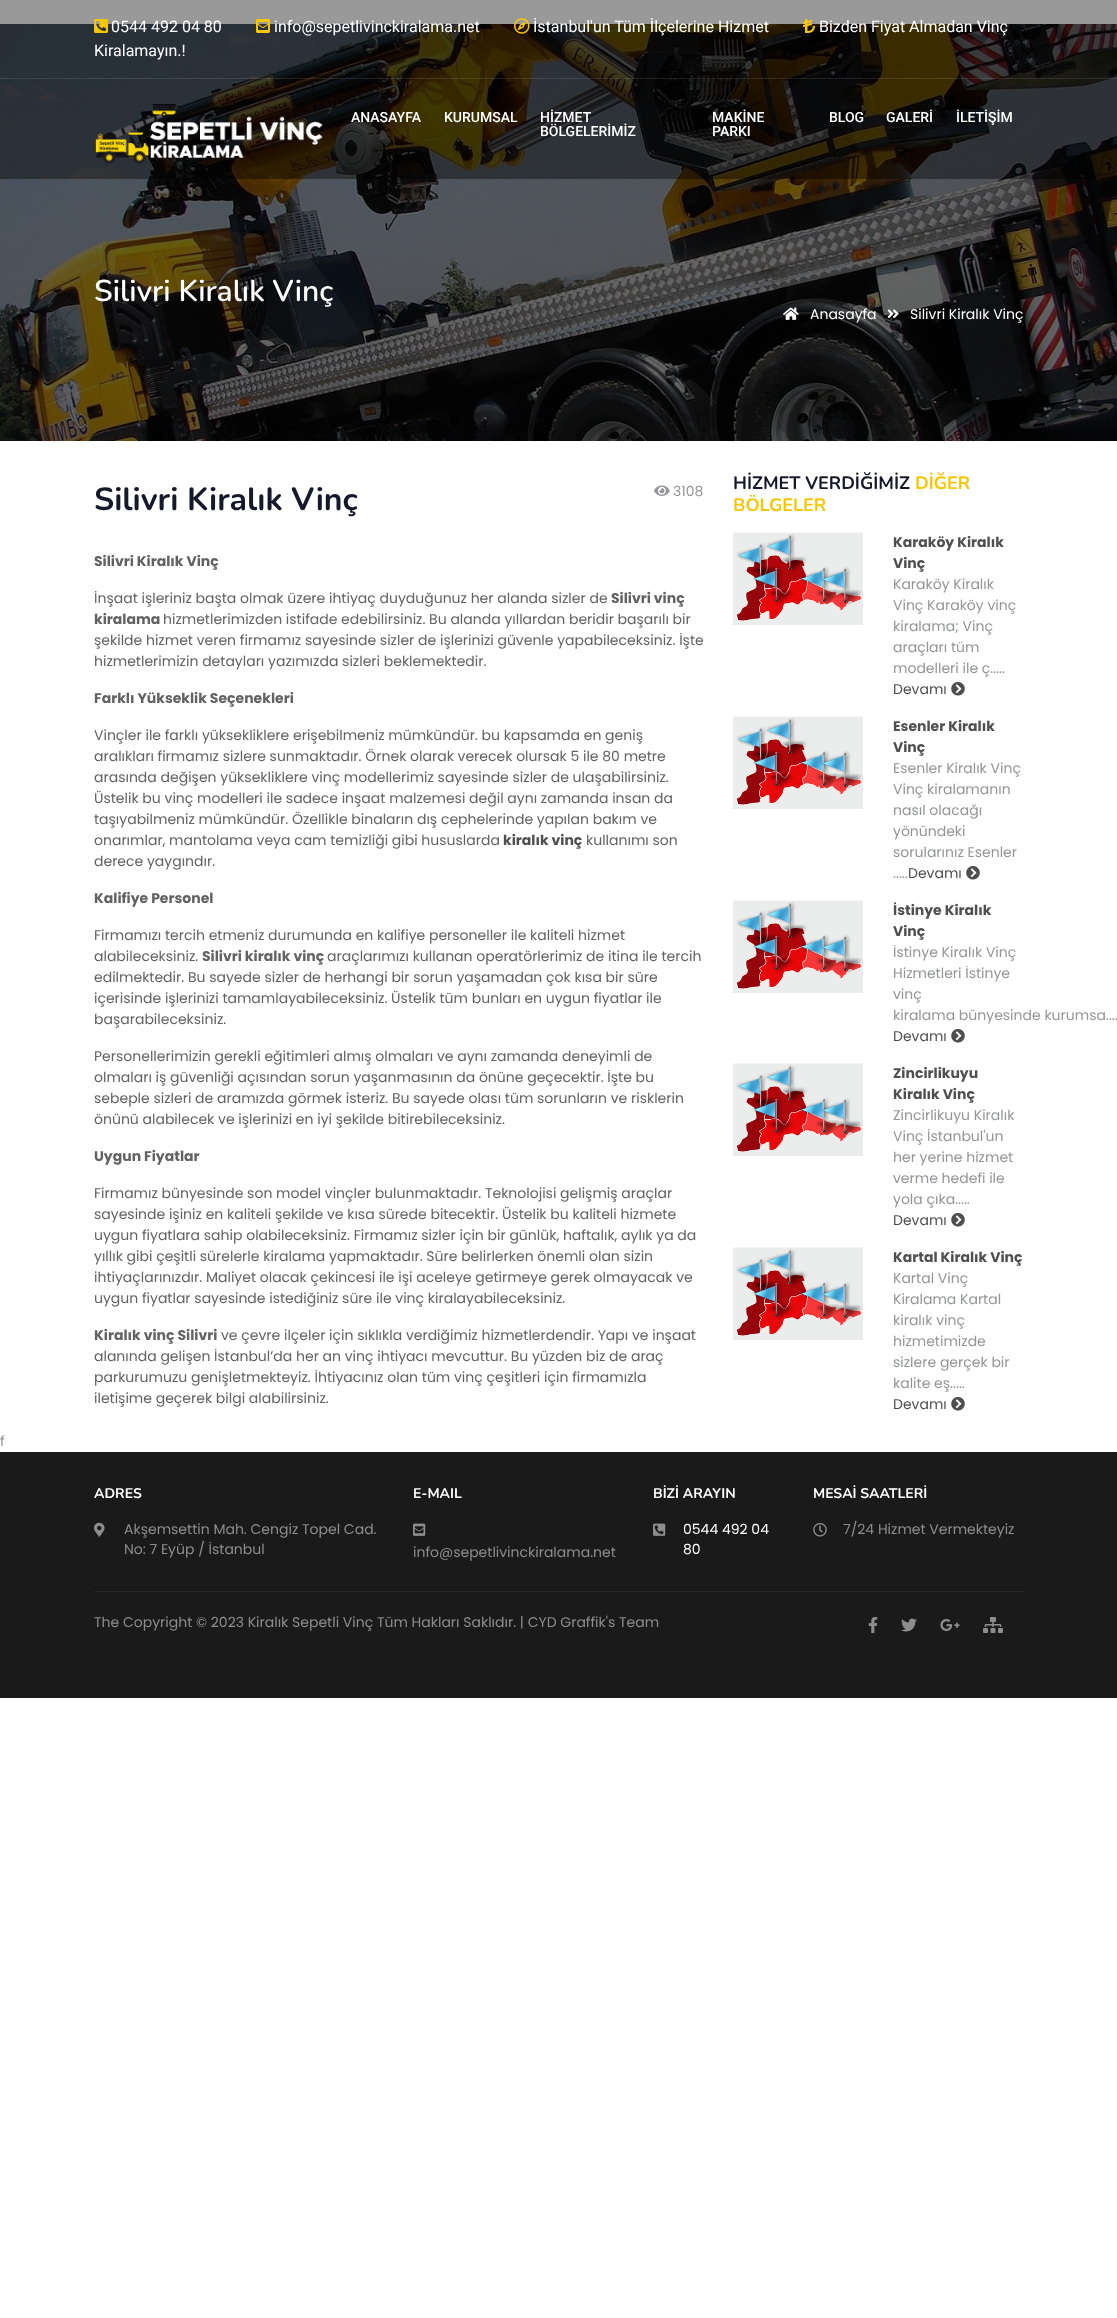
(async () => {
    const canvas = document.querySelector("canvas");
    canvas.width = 1117;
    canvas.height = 2318;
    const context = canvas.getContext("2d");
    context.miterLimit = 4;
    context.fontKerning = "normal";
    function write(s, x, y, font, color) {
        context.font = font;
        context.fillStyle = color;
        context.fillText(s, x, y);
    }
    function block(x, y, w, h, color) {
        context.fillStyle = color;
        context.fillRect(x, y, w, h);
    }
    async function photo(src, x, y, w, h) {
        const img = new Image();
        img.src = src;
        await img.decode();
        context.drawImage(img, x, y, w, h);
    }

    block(0, 0, 1117, 2318, "rgb(255, 255, 255)");
    await photo("media/6.png", 0, 24, 1117, 417);
    block(0, 0, 1117, 79, "rgba(0, 0, 0, 0.4)");
    block(0, 78, 1117, 1, "rgba(255, 255, 255, 0.1)");
    await photo("media/1.png", 256, 19, 14, 14);
    write("info@sepetlivinckiralama.net", 274, 32, "16px Roboto", "rgb(255, 255, 255)");
    await photo("media/2.png", 514, 18, 16, 16);
    write("İstanbul'un Tüm İlçelerine Hizmet", 533, 32, "16px Roboto", "rgb(255, 255, 255)");
    await photo("media/3.png", 803, 19, 12, 14);
    write("Bizden Fiyat Almadan Vinç", 819, 32, "16px Roboto", "rgb(255, 255, 255)");
    write("Kiralamayın.!", 94, 56, "16px Roboto", "rgb(255, 255, 255)");
    await photo("media/4.png", 94, 19, 14, 14);
    write("0544 492 04 80", 111, 32, "16px Roboto", "rgb(255, 255, 255)");
    block(0, 79, 1117, 100, "rgba(0, 0, 0, 0.4)");
    await photo("media/5.png", 95, 104, 228, 60);
    write("ANASAYFA", 351, 122, "500 14px Roboto", "rgb(255, 255, 255)");
    write("KURUMSAL", 444, 122, "500 14px Roboto", "rgb(255, 255, 255)");
    write("HİZMET", 540, 122, "500 14px Roboto", "rgb(255, 255, 255)");
    write("BÖLGELERİMİZ", 540, 136, "500 14px Roboto", "rgb(255, 255, 255)");
    write("MAKİNE", 712, 122, "500 14px Roboto", "rgb(255, 255, 255)");
    write("PARKI", 712, 136, "500 14px Roboto", "rgb(255, 255, 255)");
    write("BLOG", 829, 122, "500 14px Roboto", "rgb(255, 255, 255)");
    write("GALERİ", 886, 122, "500 14px Roboto", "rgb(255, 255, 255)");
    write("İLETİŞİM", 956, 122, "500 14px Roboto", "rgb(255, 255, 255)");
    write("Silivri Kiralık Vinç", 94, 301, "600 30px Nunito", "rgb(255, 255, 255)");
    await photo("media/7.png", 783, 307, 16, 13);
    write("Anasayfa", 810, 319, "14px Poppins", "rgb(255, 255, 255)");
    await photo("media/8.png", 887, 309, 12, 10);
    write("Silivri Kiralık Vinç", 910, 319, "14px Poppins", "rgb(255, 255, 255)");
    write("Silivri Kiralık Vinç", 94, 510, "bold 32px Nunito", "rgb(22, 24, 44)");
    await photo("media/9.png", 654, 485, 16, 11);
    write("3108", 673, 496, "14px Poppins", "rgb(147, 149, 152)");
    write("Silivri Kiralık Vinç", 94, 566, "bold 14px Poppins", "rgb(98, 98, 98)");
    write("İnşaat işleriniz başta olmak üzere ihtiyaç duyduğunuz her alanda sizler de", 94, 603, "14px Poppins", "rgb(98, 98, 98)");
    write("Silivri vinç", 611, 603, "bold 14px Poppins", "rgb(98, 98, 98)");
    write("kiralama", 94, 624, "bold 14px Poppins", "rgb(98, 98, 98)");
    write("hizmetlerimizden istifade edebilirsiniz. Bu alanda yıllardan beridir başarılı bir", 163, 624, "14px Poppins", "rgb(98, 98, 98)");
    write("şekilde hizmet veren firmamız sayesinde sizler de işlerinizi güvenle yapabileceksiniz. İşte", 94, 645, "14px Poppins", "rgb(98, 98, 98)");
    write("hizmetlerimizin detayları yazımızda sizleri beklemektedir.", 94, 666, "14px Poppins", "rgb(98, 98, 98)");
    write("Farklı Yükseklik Seçenekleri", 94, 703, "bold 14px Poppins", "rgb(98, 98, 98)");
    write("Vinçler ile farklı yüksekliklere erişebilmeniz mümkündür. bu kapsamda en geniş", 94, 740, "14px Poppins", "rgb(98, 98, 98)");
    write("aralıkları firmamız sizlere sunmaktadır. Örnek olarak verecek olursak 5 ile 80 metre", 94, 761, "14px Poppins", "rgb(98, 98, 98)");
    write("arasında değişen yüksekliklere vinç modellerimiz sayesinde sizler de ulaşabilirsiniz.", 94, 782, "14px Poppins", "rgb(98, 98, 98)");
    write("Üstelik bu vinç modelleri ile sadece inşaat malzemesi değil aynı zamanda insan da", 94, 803, "14px Poppins", "rgb(98, 98, 98)");
    write("taşıyabilmeniz mümkündür. Özellikle binaların dış cephelerinde yapılan bakım ve", 94, 824, "14px Poppins", "rgb(98, 98, 98)");
    write("onarımlar, mantolama veya cam temizliği gibi hususlarda", 94, 845, "14px Poppins", "rgb(98, 98, 98)");
    write("kiralık vinç", 503, 845, "bold 14px Poppins", "rgb(79, 79, 79)");
    write("kullanımı son", 586, 845, "14px Poppins", "rgb(98, 98, 98)");
    write("derece yaygındır.", 94, 866, "14px Poppins", "rgb(98, 98, 98)");
    write("Kalifiye Personel", 94, 903, "bold 14px Poppins", "rgb(98, 98, 98)");
    write("Firmamızı tercih etmeniz durumunda en kalifiye personeller ile kaliteli hizmet", 94, 940, "14px Poppins", "rgb(98, 98, 98)");
    write("alabileceksiniz.", 94, 961, "14px Poppins", "rgb(98, 98, 98)");
    write("Silivri kiralık vinç", 202, 961, "bold 14px Poppins", "rgb(98, 98, 98)");
    write("araçlarımızı kullanan operatörlerimiz de itina ile tercih", 327, 961, "14px Poppins", "rgb(98, 98, 98)");
    write("edilmektedir. Bu sayede sizler de herhangi bir sorun yaşamadan çok kısa bir süre", 94, 982, "14px Poppins", "rgb(98, 98, 98)");
    write("içerisinde işlerinizi tamamlayabileceksiniz. Üstelik tüm bunları en uygun fiyatlar ile", 94, 1003, "14px Poppins", "rgb(98, 98, 98)");
    write("başarabileceksiniz.", 94, 1024, "14px Poppins", "rgb(98, 98, 98)");
    write("Personellerimizin gerekli eğitimleri almış olmaları ve aynı zamanda deneyimli de", 94, 1061, "14px Poppins", "rgb(98, 98, 98)");
    write("olmaları iş güvenliği açısından sorun yaşanmasının da önüne geçecektir. İşte bu", 94, 1082, "14px Poppins", "rgb(98, 98, 98)");
    write("sebeple sizleri de aramızda görmek isteriz. Bu sayede olası tüm sorunların ve risklerin", 94, 1103, "14px Poppins", "rgb(98, 98, 98)");
    write("önünü alabilecek ve işlerinizi en iyi şekilde bitirebileceksiniz.", 94, 1124, "14px Poppins", "rgb(98, 98, 98)");
    write("Uygun Fiyatlar", 94, 1161, "bold 14px Poppins", "rgb(98, 98, 98)");
    write("Firmamız bünyesinde son model vinçler bulunmaktadır. Teknolojisi gelişmiş araçlar", 94, 1198, "14px Poppins", "rgb(98, 98, 98)");
    write("sayesinde işiniz en kaliteli şekilde ve kısa sürede bitecektir. Üstelik bu kaliteli hizmete", 94, 1219, "14px Poppins", "rgb(98, 98, 98)");
    write("uygun fiyatlara sahip olabileceksiniz. Firmamız sizler için bir günlük, haftalık, aylık ya da", 94, 1240, "14px Poppins", "rgb(98, 98, 98)");
    write("yıllık gibi çeşitli sürelerle kiralama yapmaktadır. Süre belirlerken önemli olan sizin", 94, 1261, "14px Poppins", "rgb(98, 98, 98)");
    write("ihtiyaçlarınızdır. Maliyet olacak çekincesi ile işi aceleye getirmeye gerek olmayacak ve", 94, 1282, "14px Poppins", "rgb(98, 98, 98)");
    write("uygun fiyatlar sayesinde istediğiniz süre ile vinç kiralayabileceksiniz.", 94, 1303, "14px Poppins", "rgb(98, 98, 98)");
    write("Kiralık vinç Silivri", 94, 1340, "bold 14px Poppins", "rgb(98, 98, 98)");
    write("ve çevre ilçeler için sıklıkla verdiğimiz hizmetlerdendir. Yapı ve inşaat", 221, 1340, "14px Poppins", "rgb(98, 98, 98)");
    write("alanında gelişen İstanbul’da her an vinç ihtiyacı mevcuttur. Bu yüzden biz de araç", 94, 1361, "14px Poppins", "rgb(98, 98, 98)");
    write("parkurumuzu genişletmekteyiz. İhtiyacınız olan tüm vinç çeşitleri için firmamızla", 94, 1382, "14px Poppins", "rgb(98, 98, 98)");
    write("iletişime geçerek bilgi alabilirsiniz.", 94, 1403, "14px Poppins", "rgb(98, 98, 98)");
    write("HİZMET VERDİĞİMİZ", 733, 489, "bold 18px Nunito", "rgb(22, 24, 44)");
    write("DİĞER", 915, 489, "bold 18px Nunito", "rgb(247, 198, 5)");
    write("BÖLGELER", 733, 511, "bold 18px Nunito", "rgb(247, 198, 5)");
    await photo("media/10.png", 733, 532, 130, 93);
    write("Karaköy Kiralık", 893, 547, "bold 14px Poppins", "rgb(79, 79, 79)");
    write("Vinç", 893, 568, "bold 14px Poppins", "rgb(79, 79, 79)");
    write("Karaköy Kiralık", 893, 589, "14px Poppins", "rgb(147, 149, 152)");
    write("Vinç Karaköy vinç", 893, 610, "14px Poppins", "rgb(147, 149, 152)");
    write("kiralama; Vinç", 893, 631, "14px Poppins", "rgb(147, 149, 152)");
    write("araçları tüm", 893, 652, "14px Poppins", "rgb(147, 149, 152)");
    write("modelleri ile ç.....", 893, 673, "14px Poppins", "rgb(147, 149, 152)");
    write("Devamı", 893, 694, "14px Poppins", "rgb(79, 79, 79)");
    await photo("media/11.png", 951, 682, 14, 14);
    await photo("media/10.png", 733, 716, 130, 93);
    write("Esenler Kiralık", 893, 731, "bold 14px Poppins", "rgb(79, 79, 79)");
    write("Vinç", 893, 752, "bold 14px Poppins", "rgb(79, 79, 79)");
    write("Esenler Kiralık Vinç", 893, 773, "14px Poppins", "rgb(147, 149, 152)");
    write("Vinç kiralamanın", 893, 794, "14px Poppins", "rgb(147, 149, 152)");
    write("nasıl olacağı", 893, 815, "14px Poppins", "rgb(147, 149, 152)");
    write("yönündeki", 893, 836, "14px Poppins", "rgb(147, 149, 152)");
    write("sorularınız Esenler", 893, 857, "14px Poppins", "rgb(147, 149, 152)");
    write(".....", 893, 878, "14px Poppins", "rgb(147, 149, 152)");
    write("Devamı", 908, 878, "14px Poppins", "rgb(79, 79, 79)");
    await photo("media/11.png", 966, 866, 14, 14);
    await photo("media/10.png", 733, 900, 130, 93);
    write("İstinye Kiralık", 893, 915, "bold 14px Poppins", "rgb(79, 79, 79)");
    write("Vinç", 893, 936, "bold 14px Poppins", "rgb(79, 79, 79)");
    write("İstinye Kiralık Vinç", 893, 957, "14px Poppins", "rgb(147, 149, 152)");
    write("Hizmetleri İstinye", 893, 978, "14px Poppins", "rgb(147, 149, 152)");
    write("vinç", 893, 999, "14px Poppins", "rgb(147, 149, 152)");
    write("kiralama bünyesinde kurumsa....", 893, 1020, "14px Poppins", "rgb(147, 149, 152)");
    write("Devamı", 893, 1041, "14px Poppins", "rgb(79, 79, 79)");
    await photo("media/11.png", 951, 1029, 14, 14);
    await photo("media/10.png", 733, 1063, 130, 93);
    write("Zincirlikuyu", 893, 1078, "bold 14px Poppins", "rgb(79, 79, 79)");
    write("Kiralık Vinç", 893, 1099, "bold 14px Poppins", "rgb(79, 79, 79)");
    write("Zincirlikuyu Kiralık", 893, 1120, "14px Poppins", "rgb(147, 149, 152)");
    write("Vinç İstanbul'un", 893, 1141, "14px Poppins", "rgb(147, 149, 152)");
    write("her yerine hizmet", 893, 1162, "14px Poppins", "rgb(147, 149, 152)");
    write("verme hedefi ile", 893, 1183, "14px Poppins", "rgb(147, 149, 152)");
    write("yola çıka.....", 893, 1204, "14px Poppins", "rgb(147, 149, 152)");
    write("Devamı", 893, 1225, "14px Poppins", "rgb(79, 79, 79)");
    await photo("media/11.png", 951, 1213, 14, 14);
    await photo("media/10.png", 733, 1247, 130, 93);
    write("Kartal Kiralık Vinç", 893, 1262, "bold 14px Poppins", "rgb(79, 79, 79)");
    write("Kartal Vinç", 893, 1283, "14px Poppins", "rgb(147, 149, 152)");
    write("Kiralama Kartal", 893, 1304, "14px Poppins", "rgb(147, 149, 152)");
    write("kiralık vinç", 893, 1325, "14px Poppins", "rgb(147, 149, 152)");
    write("hizmetimizde", 893, 1346, "14px Poppins", "rgb(147, 149, 152)");
    write("sizlere gerçek bir", 893, 1367, "14px Poppins", "rgb(147, 149, 152)");
    write("kalite eş.....", 893, 1388, "14px Poppins", "rgb(147, 149, 152)");
    write("Devamı", 893, 1409, "14px Poppins", "rgb(79, 79, 79)");
    await photo("media/11.png", 951, 1397, 14, 14);
    write("f", 0, 1446, "14px Poppins", "rgb(147, 149, 152)");
    block(0, 1452, 1117, 246, "rgb(26, 26, 26)");
    write("ADRES", 94, 1498, "bold 14px Nunito", "rgb(255, 255, 255)");
    await photo("media/12.png", 94, 1522, 11, 15);
    write("Akşemsettin Mah. Cengiz Topel Cad.", 124, 1534, "14px Poppins", "rgb(141, 141, 141)");
    write("No: 7 Eyüp / İstanbul", 124, 1554, "14px Poppins", "rgb(141, 141, 141)");
    write("E-MAIL", 413, 1498, "bold 14px Nunito", "rgb(255, 255, 255)");
    await photo("media/13.png", 413, 1523, 13, 13);
    write("info@sepetlivinckiralama.net", 413, 1557, "14px Poppins", "rgb(141, 141, 141)");
    write("BİZİ ARAYIN", 653, 1498, "bold 14px Nunito", "rgb(255, 255, 255)");
    await photo("media/14.png", 653, 1523, 13, 13);
    write("0544 492 04", 683, 1534, "14px Poppins", "rgb(255, 255, 255)");
    write("80", 683, 1554, "14px Poppins", "rgb(255, 255, 255)");
    write("MESAİ SAATLERİ", 813, 1498, "bold 14px Nunito", "rgb(255, 255, 255)");
    await photo("media/15.png", 813, 1523, 14, 14);
    write("7/24 Hizmet Vermekteyiz", 843, 1534, "14px Poppins", "rgb(141, 141, 141)");
    block(94, 1591, 930, 1, "rgb(38, 38, 38)");
    write("The Copyright © 2023 Kiralık Sepetli Vinç Tüm Hakları Saklıdır. | CYD Graffik's Team", 94, 1627, "14px Poppins", "rgb(141, 141, 141)");
    await photo("media/16.png", 868, 1617, 10, 16);
    await photo("media/17.png", 901, 1618, 16, 14);
    await photo("media/18.png", 940, 1619, 20, 12);
    await photo("media/19.png", 983, 1617, 20, 16);
})();
